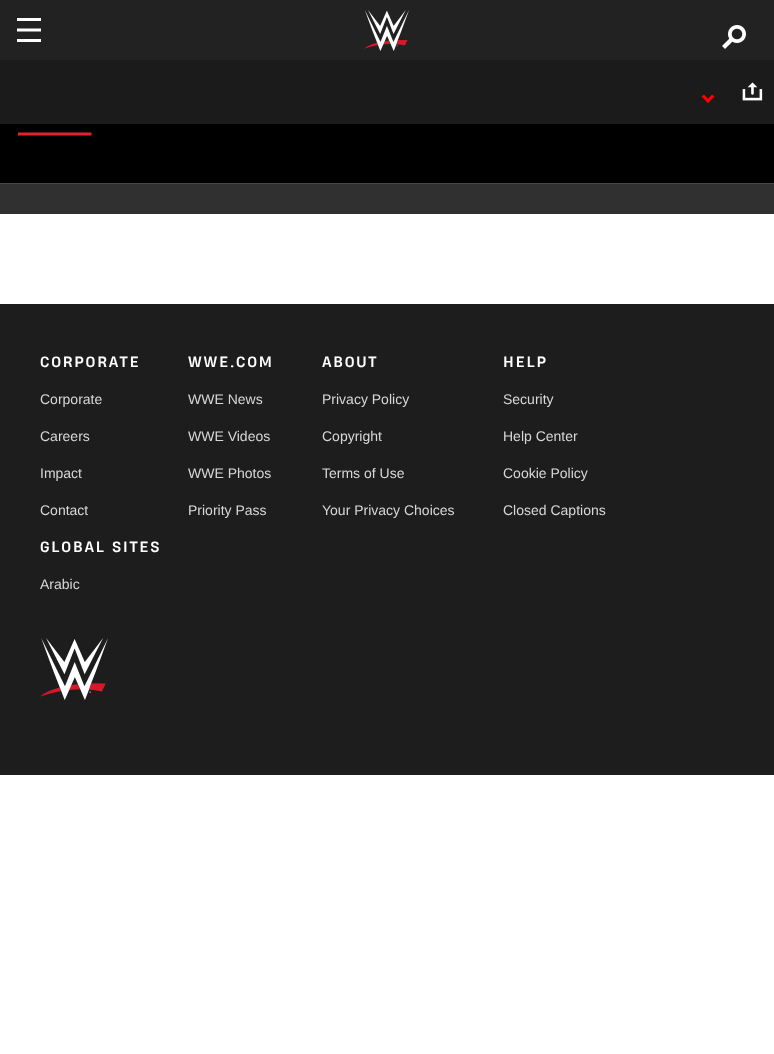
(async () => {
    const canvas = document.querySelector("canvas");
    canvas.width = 774;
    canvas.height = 1054;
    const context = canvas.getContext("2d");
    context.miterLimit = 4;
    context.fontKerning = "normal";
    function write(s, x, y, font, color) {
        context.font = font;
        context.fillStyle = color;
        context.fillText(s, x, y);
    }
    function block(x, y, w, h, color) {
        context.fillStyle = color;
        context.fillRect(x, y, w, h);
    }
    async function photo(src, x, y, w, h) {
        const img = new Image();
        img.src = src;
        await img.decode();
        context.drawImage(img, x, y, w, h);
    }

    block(0, 0, 774, 1054, "rgb(255, 255, 255)");
    block(0, 0, 774, 60, "rgb(34, 34, 34)");
    await photo("media/1.png", 17, 18, 24, 24);
    await photo("media/2.png", 364, 10, 45, 41);
    await photo("media/3.png", 722, 25, 24, 24);
    block(0, 184, 774, 30, "rgb(48, 48, 48)");
    block(0, 60, 774, 64, "rgb(27, 27, 27)");
    context.fillStyle = "rgb(255, 0, 0)";
    context.beginPath();
    context.moveTo(712, 94.5);
    context.lineTo(714.5, 96.5);
    context.lineTo(708, 103);
    context.lineTo(706, 101);
    context.closePath();
    context.fill();
    context.beginPath();
    context.moveTo(704, 94.5);
    context.lineTo(710, 101);
    context.lineTo(708, 103);
    context.lineTo(701.5, 96.5);
    context.closePath();
    context.fill();
    await photo("media/4.png", 742, 82, 21, 19);
    block(0, 124, 774, 59, "rgb(0, 0, 0)");
    block(0, 183, 774, 1, "rgb(71, 71, 71)");
    context.save();
    context.beginPath();
    context.rect(18, 131, 90, 5);
    context.clip();
    context.beginPath();
    context.moveTo(1.5, 134);
    context.lineTo(91.5, 134);
    context.strokeStyle = "rgb(231, 32, 47)";
    context.lineWidth = 3;
    context.stroke();
    context.restore();
    block(0, 304, 774, 471, "rgb(29, 29, 29)");
    context.letterSpacing = "1.75px";
    write("CORPORATE", 40, 367, "bold 14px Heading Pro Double", "rgb(255, 255, 255)");
    context.letterSpacing = "0px";
    write("Corporate", 40, 404, "14px Liberation Sans", "rgb(216, 216, 216)");
    write("Careers", 40, 441, "14px Liberation Sans", "rgb(216, 216, 216)");
    write("Impact", 40, 478, "14px Liberation Sans", "rgb(216, 216, 216)");
    write("Contact", 40, 515, "14px Liberation Sans", "rgb(216, 216, 216)");
    context.letterSpacing = "1.75px";
    write("WWE.COM", 188, 367, "bold 14px Heading Pro Double", "rgb(255, 255, 255)");
    context.letterSpacing = "0px";
    write("WWE News", 188, 404, "14px Liberation Sans", "rgb(216, 216, 216)");
    write("WWE Videos", 188, 441, "14px Liberation Sans", "rgb(216, 216, 216)");
    write("WWE Photos", 188, 478, "14px Liberation Sans", "rgb(216, 216, 216)");
    write("Priority Pass", 188, 515, "14px Liberation Sans", "rgb(216, 216, 216)");
    context.letterSpacing = "1.75px";
    write("ABOUT", 322, 367, "bold 14px Heading Pro Double", "rgb(255, 255, 255)");
    context.letterSpacing = "0px";
    write("Privacy Policy", 322, 404, "14px Liberation Sans", "rgb(216, 216, 216)");
    write("Copyright", 322, 441, "14px Liberation Sans", "rgb(216, 216, 216)");
    write("Terms of Use", 322, 478, "14px Liberation Sans", "rgb(216, 216, 216)");
    write("Your Privacy Choices", 322, 515, "14px Liberation Sans", "rgb(216, 216, 216)");
    context.letterSpacing = "1.75px";
    write("HELP", 503, 367, "bold 14px Heading Pro Double", "rgb(255, 255, 255)");
    context.letterSpacing = "0px";
    write("Security", 503, 404, "14px Liberation Sans", "rgb(216, 216, 216)");
    write("Help Center", 503, 441, "14px Liberation Sans", "rgb(216, 216, 216)");
    write("Cookie Policy", 503, 478, "14px Liberation Sans", "rgb(216, 216, 216)");
    write("Closed Captions", 503, 515, "14px Liberation Sans", "rgb(216, 216, 216)");
    context.letterSpacing = "1.75px";
    write("GLOBAL SITES", 40, 552, "bold 14px Heading Pro Double", "rgb(255, 255, 255)");
    context.letterSpacing = "0px";
    write("Arabic", 40, 589, "14px Liberation Sans", "rgb(216, 216, 216)");
    await photo("media/5.png", 40, 638, 68, 62);
})();
